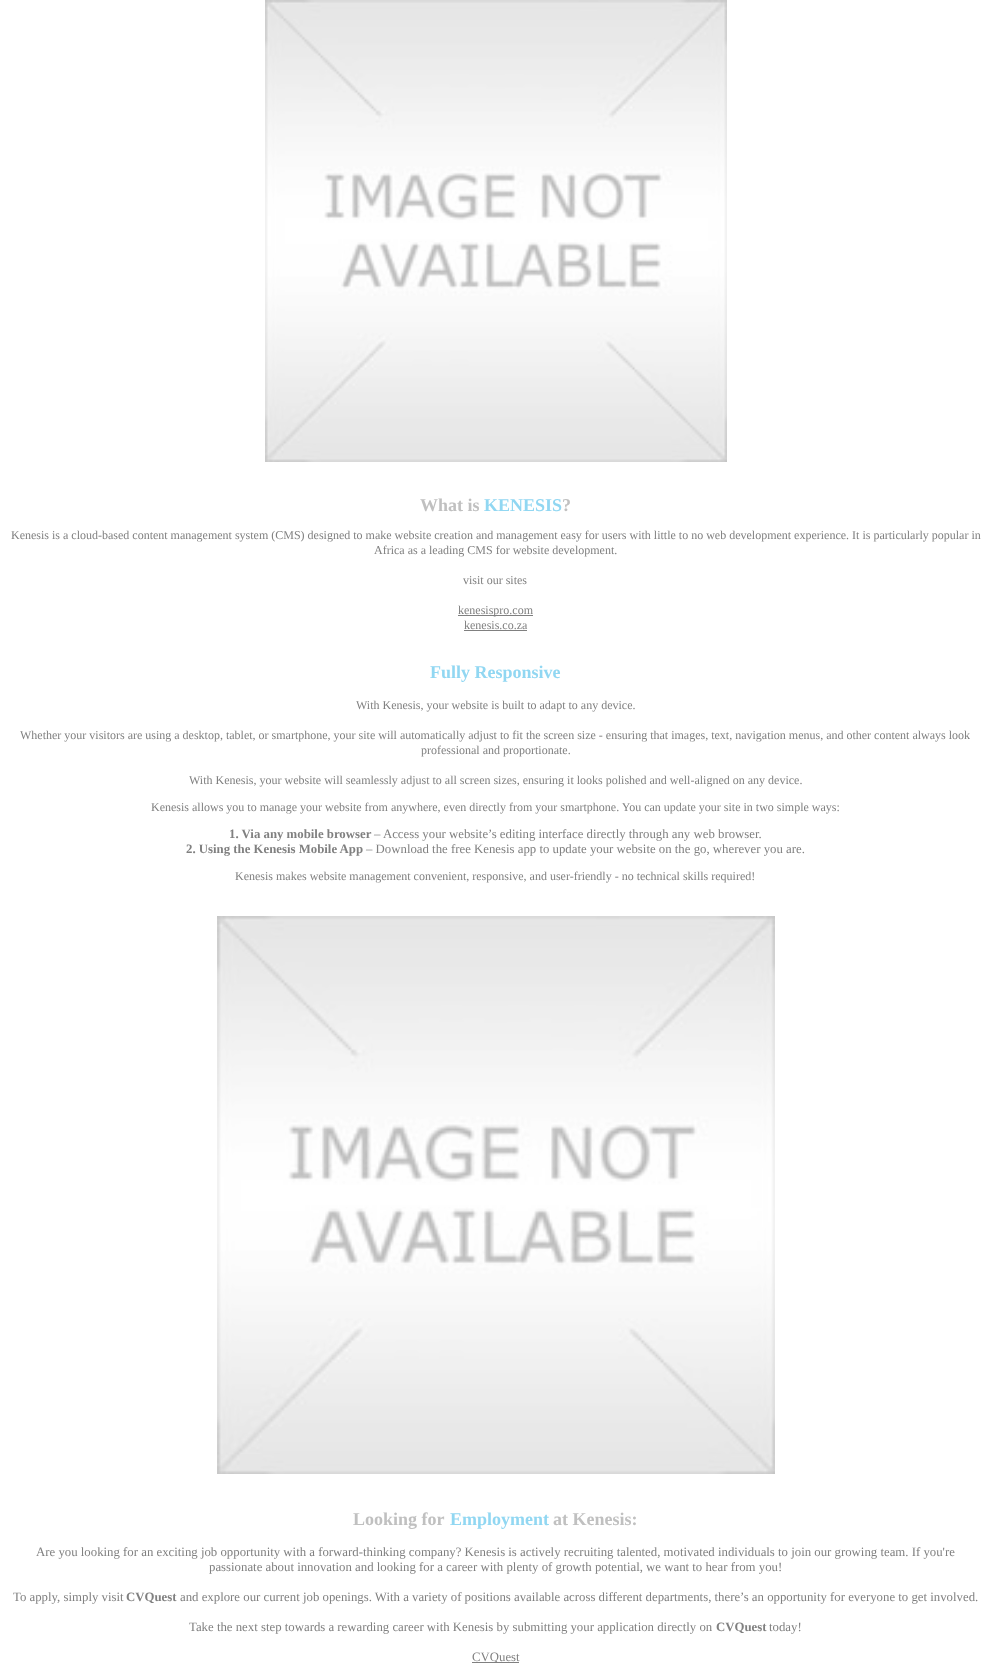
(async () => {
    const canvas = document.querySelector("canvas");
    canvas.width = 991;
    canvas.height = 1666;
    const context = canvas.getContext("2d");
    context.miterLimit = 4;
    context.fontKerning = "normal";
    function write(s, x, y, font, color) {
        context.font = font;
        context.fillStyle = color;
        context.fillText(s, x, y);
    }
    function block(x, y, w, h, color) {
        context.fillStyle = color;
        context.fillRect(x, y, w, h);
    }
    async function photo(src, x, y, w, h) {
        const img = new Image();
        img.src = src;
        await img.decode();
        context.drawImage(img, x, y, w, h);
    }

    block(0, 0, 991, 1666, "rgb(255, 255, 255)");
    await photo("media/1.png", 265, 0, 462, 462);
    write("What is", 420, 511, "bold 18px Liberation Serif", "rgb(192, 192, 192)");
    write("KENESIS", 484, 511, "bold 18px Liberation Serif", "rgb(145, 215, 242)");
    write("?", 562, 511, "bold 18px Liberation Serif", "rgb(192, 192, 192)");
    write("Kenesis is a cloud-based content management system (CMS) designed to make website creation and management easy for users with little to no web development experience. It is particularly popular in", 11, 539, "12px Liberation Serif", "rgb(128, 128, 128)");
    write("Africa as a leading CMS for website development.", 374, 554, "12px Liberation Serif", "rgb(128, 128, 128)");
    write("visit our sites", 463, 584, "12px Liberation Serif", "rgb(128, 128, 128)");
    block(458, 615, 75, 1, "rgb(128, 128, 128)");
    write("kenesispro.com", 458, 614, "12px Liberation Serif", "rgb(128, 128, 128)");
    write("kenesis.co.za", 464, 629, "12px Liberation Serif", "rgb(128, 128, 128)");
    block(464, 630, 63, 1, "rgb(128, 128, 128)");
    write("Fully Responsive", 430, 678, "bold 18px Liberation Serif", "rgb(145, 215, 242)");
    write("With Kenesis, your website is built to adapt to any device.", 356, 709, "12px Liberation Serif", "rgb(128, 128, 128)");
    write("Whether your visitors are using a desktop, tablet, or smartphone, your site will automatically adjust to fit the screen size - ensuring that images, text, navigation menus, and other content always look", 20, 739, "12px Liberation Serif", "rgb(128, 128, 128)");
    write("professional and proportionate.", 421, 754, "12px Liberation Serif", "rgb(128, 128, 128)");
    write("With Kenesis, your website will seamlessly adjust to all screen sizes, ensuring it looks polished and well-aligned on any device.", 189, 784, "12px Liberation Serif", "rgb(128, 128, 128)");
    write("Kenesis allows you to manage your website from anywhere, even directly from your smartphone. You can update your site in two simple ways:", 151, 811, "12px Liberation Serif", "rgb(128, 128, 128)");
    write("1. Via any mobile browser", 229, 838, "bold 12.8px Liberation Serif", "rgb(128, 128, 128)");
    write("– Access your website’s editing interface directly through any web browser.", 374, 838, "12.8px Liberation Serif", "rgb(128, 128, 128)");
    write("2. Using the Kenesis Mobile App", 186, 853, "bold 12.8px Liberation Serif", "rgb(128, 128, 128)");
    write("– Download the free Kenesis app to update your website on the go, wherever you are.", 366, 853, "12.8px Liberation Serif", "rgb(128, 128, 128)");
    write("Kenesis makes website management convenient, responsive, and user-friendly - no technical skills required!", 235, 880, "12px Liberation Serif", "rgb(128, 128, 128)");
    await photo("media/2.png", 217, 916, 558, 558);
    write("Looking for", 353, 1525, "bold 18px Liberation Serif", "rgb(192, 192, 192)");
    write("Employment", 450, 1525, "bold 18px Liberation Serif", "rgb(145, 215, 242)");
    write("at Kenesis:", 553, 1525, "bold 18px Liberation Serif", "rgb(192, 192, 192)");
    write("Are you looking for an exciting job opportunity with a forward-thinking company? Kenesis is actively recruiting talented, motivated individuals to join our growing team. If you're", 36, 1556, "12.8px Liberation Serif", "rgb(128, 128, 128)");
    write("passionate about innovation and looking for a career with plenty of growth potential, we want to hear from you!", 209, 1571, "12.8px Liberation Serif", "rgb(128, 128, 128)");
    write("To apply, simply visit", 13, 1601, "12.8px Liberation Serif", "rgb(128, 128, 128)");
    write("CVQuest", 126, 1601, "bold 12.8px Liberation Serif", "rgb(128, 128, 128)");
    write("and explore our current job openings. With a variety of positions available across different departments, there’s an opportunity for everyone to get involved.", 180, 1601, "12.8px Liberation Serif", "rgb(128, 128, 128)");
    write("Take the next step towards a rewarding career with Kenesis by submitting your application directly on", 189, 1631, "12.8px Liberation Serif", "rgb(128, 128, 128)");
    write("CVQuest", 716, 1631, "bold 12.8px Liberation Serif", "rgb(128, 128, 128)");
    write("today!", 769, 1631, "12.8px Liberation Serif", "rgb(128, 128, 128)");
    block(472, 1662, 47, 1, "rgb(128, 128, 128)");
    write("CVQuest", 472, 1661, "12.8px Liberation Serif", "rgb(128, 128, 128)");
})();
